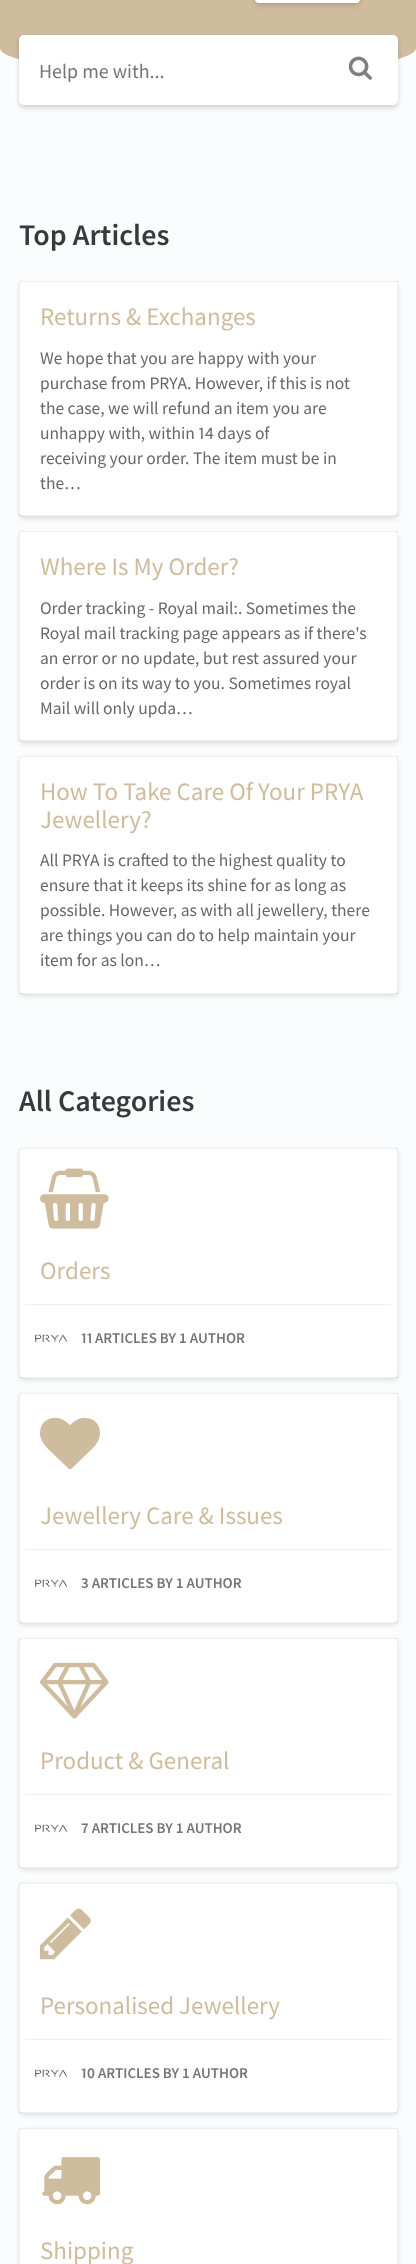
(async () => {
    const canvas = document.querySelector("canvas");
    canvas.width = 416;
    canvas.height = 2264;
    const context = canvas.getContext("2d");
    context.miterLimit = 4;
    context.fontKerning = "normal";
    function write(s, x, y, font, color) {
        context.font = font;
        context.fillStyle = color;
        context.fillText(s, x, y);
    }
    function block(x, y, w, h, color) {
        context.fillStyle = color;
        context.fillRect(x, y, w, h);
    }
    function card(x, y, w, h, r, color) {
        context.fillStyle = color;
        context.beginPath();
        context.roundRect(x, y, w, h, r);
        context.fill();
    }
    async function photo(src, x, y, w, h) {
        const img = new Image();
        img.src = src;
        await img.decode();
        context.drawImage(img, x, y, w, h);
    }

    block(0, 0, 416, 2264, "rgb(251, 252, 254)");
    context.fillStyle = "rgb(207, 188, 158)";
    context.beginPath();
    context.moveTo(0, -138);
    context.lineTo(416, -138);
    context.lineTo(416, 48);
    context.bezierCurveTo(416, 63, 323, 75, 208, 75);
    context.bezierCurveTo(93, 75, 0, 63, 0, 48);
    context.closePath();
    context.fill();
    context.fillStyle = "rgba(0, 0, 0, 0.16)";
    context.filter = "blur(2.5px)";
    context.beginPath();
    context.roundRect(255, -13, 105, 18, 5);
    context.fill();
    context.filter = "none";
    card(255, -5, 105, 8, 5, "rgb(255, 255, 255)");
    context.fillStyle = "rgba(0, 0, 0, 0.16)";
    context.filter = "blur(2.5px)";
    context.beginPath();
    context.roundRect(19, 38, 379, 70, 5);
    context.fill();
    context.filter = "none";
    card(19, 35, 379, 70, 5, "rgb(255, 255, 255)");
    write("Help me with...", 39, 78, "20px Source Sans Pro", "rgb(117, 117, 117)");
    await photo("media/1.png", 348, 56, 24, 24);
    write("Top Articles", 19, 245, "600 30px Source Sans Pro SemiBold", "rgb(55, 58, 60)");
    context.fillStyle = "rgba(0, 0, 0, 0.12)";
    context.filter = "blur(2.5px)";
    context.beginPath();
    context.roundRect(19, 284, 379, 235, 5);
    context.fill();
    context.filter = "none";
    card(19, 281, 379, 235, 5, "rgb(255, 255, 255)");
    context.strokeStyle = "rgba(0, 0, 0, 0.06)";
    context.strokeRect(19.5, 281.5, 378, 234);
    write("Returns & Exchanges", 40, 325, "25px Source Sans Pro", "rgb(207, 188, 158)");
    write("We hope that you are happy with your", 40, 364, "17.5px Source Sans Pro", "rgb(103, 103, 103)");
    write("purchase from PRYA. However, if this is not", 40, 389, "17.5px Source Sans Pro", "rgb(103, 103, 103)");
    write("the case, we will refund an item you are", 40, 414, "17.5px Source Sans Pro", "rgb(103, 103, 103)");
    write("unhappy with, within 14 days of", 40, 439, "17.5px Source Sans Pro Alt", "rgb(103, 103, 103)");
    write("receiving your order. The item must be in", 40, 464, "17.5px Source Sans Pro", "rgb(103, 103, 103)");
    write("the…", 40, 489, "17.5px Source Sans Pro", "rgb(103, 103, 103)");
    context.fillStyle = "rgba(0, 0, 0, 0.12)";
    context.filter = "blur(2.5px)";
    context.beginPath();
    context.roundRect(19, 534, 379, 210, 5);
    context.fill();
    context.filter = "none";
    card(19, 531, 379, 210, 5, "rgb(255, 255, 255)");
    context.strokeRect(19.5, 531.5, 378, 209);
    write("Where Is My Order?", 40, 575, "25px Source Sans Pro", "rgb(207, 188, 158)");
    write("Order tracking - Royal mail:. Sometimes the", 40, 614, "17.5px Source Sans Pro", "rgb(103, 103, 103)");
    write("Royal mail tracking page appears as if there's", 40, 639, "17.5px Source Sans Pro", "rgb(103, 103, 103)");
    write("an error or no update, but rest assured your", 40, 664, "17.5px Source Sans Pro", "rgb(103, 103, 103)");
    write("order is on its way to you. Sometimes royal", 40, 689, "17.5px Source Sans Pro", "rgb(103, 103, 103)");
    write("Mail will only upda…", 40, 714, "17.5px Source Sans Pro", "rgb(103, 103, 103)");
    context.fillStyle = "rgba(0, 0, 0, 0.12)";
    context.filter = "blur(2.5px)";
    context.beginPath();
    context.roundRect(19, 759, 379, 237, 5);
    context.fill();
    context.filter = "none";
    card(19, 756, 379, 238, 5, "rgb(255, 255, 255)");
    context.strokeRect(19.5, 756.5, 378, 237);
    write("How To Take Care Of Your PRYA", 40, 800, "25px Source Sans Pro", "rgb(207, 188, 158)");
    write("Jewellery?", 40, 828, "25px Source Sans Pro", "rgb(207, 188, 158)");
    write("All PRYA is crafted to the highest quality to", 40, 866, "17.5px Source Sans Pro", "rgb(103, 103, 103)");
    write("ensure that it keeps its shine for as long as", 40, 891, "17.5px Source Sans Pro", "rgb(103, 103, 103)");
    write("possible. However, as with all jewellery, there", 40, 916, "17.5px Source Sans Pro", "rgb(103, 103, 103)");
    write("are things you can do to help maintain your", 40, 941, "17.5px Source Sans Pro", "rgb(103, 103, 103)");
    write("item for as lon…", 40, 966, "17.5px Source Sans Pro", "rgb(103, 103, 103)");
    write("All Categories", 19, 1111, "600 30px Source Sans Pro SemiBold", "rgb(55, 58, 60)");
    context.fillStyle = "rgba(0, 0, 0, 0.12)";
    context.filter = "blur(2.5px)";
    context.beginPath();
    context.roundRect(19, 1150, 379, 230, 5);
    context.fill();
    context.filter = "none";
    card(19, 1148, 379, 230, 5, "rgb(255, 255, 255)");
    context.strokeRect(19.5, 1148.5, 378, 229);
    await photo("media/2.png", 40, 1168, 69, 61);
    write("Orders", 40, 1279, "25px Source Sans Pro", "rgb(207, 188, 158)");
    block(25, 1304, 366, 1, "rgb(240, 240, 240)");
    await photo("media/3.png", 35, 1334, 33, 9);
    write("11", 81, 1343, "600 15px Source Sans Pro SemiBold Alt", "rgb(117, 117, 117)");
    write("ARTICLES BY 1 AUTHOR", 95, 1343, "600 15px Source Sans Pro SemiBold", "rgb(117, 117, 117)");
    context.fillStyle = "rgba(0, 0, 0, 0.12)";
    context.filter = "blur(2.5px)";
    context.beginPath();
    context.roundRect(19, 1395, 379, 230, 5);
    context.fill();
    context.filter = "none";
    card(19, 1393, 379, 230, 5, "rgb(255, 255, 255)");
    context.strokeRect(19.5, 1393.5, 378, 229);
    await photo("media/4.png", 40, 1417, 60, 53);
    write("Jewellery Care & Issues", 40, 1524, "25px Source Sans Pro", "rgb(207, 188, 158)");
    block(25, 1549, 366, 1, "rgb(240, 240, 240)");
    await photo("media/3.png", 35, 1579, 33, 9);
    write("3 ARTICLES BY 1 AUTHOR", 81, 1588, "600 15px Source Sans Pro SemiBold", "rgb(117, 117, 117)");
    context.fillStyle = "rgba(0, 0, 0, 0.12)";
    context.filter = "blur(2.5px)";
    context.beginPath();
    context.roundRect(19, 1640, 379, 230, 5);
    context.fill();
    context.filter = "none";
    card(19, 1638, 379, 230, 5, "rgb(255, 255, 255)");
    context.strokeRect(19.5, 1638.5, 378, 229);
    await photo("media/5.png", 40, 1662, 69, 57);
    write("Product & General", 40, 1769, "25px Source Sans Pro", "rgb(207, 188, 158)");
    block(25, 1794, 366, 1, "rgb(240, 240, 240)");
    await photo("media/3.png", 35, 1824, 33, 9);
    write("7 ARTICLES BY 1 AUTHOR", 81, 1833, "600 15px Source Sans Pro SemiBold", "rgb(117, 117, 117)");
    context.fillStyle = "rgba(0, 0, 0, 0.12)";
    context.filter = "blur(2.5px)";
    context.beginPath();
    context.roundRect(19, 1885, 379, 230, 5);
    context.fill();
    context.filter = "none";
    card(19, 1883, 379, 230, 5, "rgb(255, 255, 255)");
    context.strokeRect(19.5, 1883.5, 378, 229);
    await photo("media/6.png", 40, 1908, 51, 52);
    write("Personalised Jewellery", 40, 2014, "25px Source Sans Pro", "rgb(207, 188, 158)");
    block(25, 2039, 366, 1, "rgb(240, 240, 240)");
    await photo("media/3.png", 35, 2069, 33, 9);
    write("10", 81, 2078, "600 15px Source Sans Pro SemiBold Alt", "rgb(117, 117, 117)");
    write("ARTICLES BY 1 AUTHOR", 98, 2078, "600 15px Source Sans Pro SemiBold", "rgb(117, 117, 117)");
    context.fillStyle = "rgba(0, 0, 0, 0.12)";
    context.filter = "blur(2.5px)";
    context.beginPath();
    context.roundRect(19, 2130, 379, 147, 5);
    context.fill();
    context.filter = "none";
    card(19, 2128, 379, 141, 5, "rgb(255, 255, 255)");
    context.strokeRect(19.5, 2128.5, 378, 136);
    await photo("media/7.png", 42, 2157, 58, 48);
    write("Shipping", 40, 2259, "25px Source Sans Pro", "rgb(207, 188, 158)");
})();
